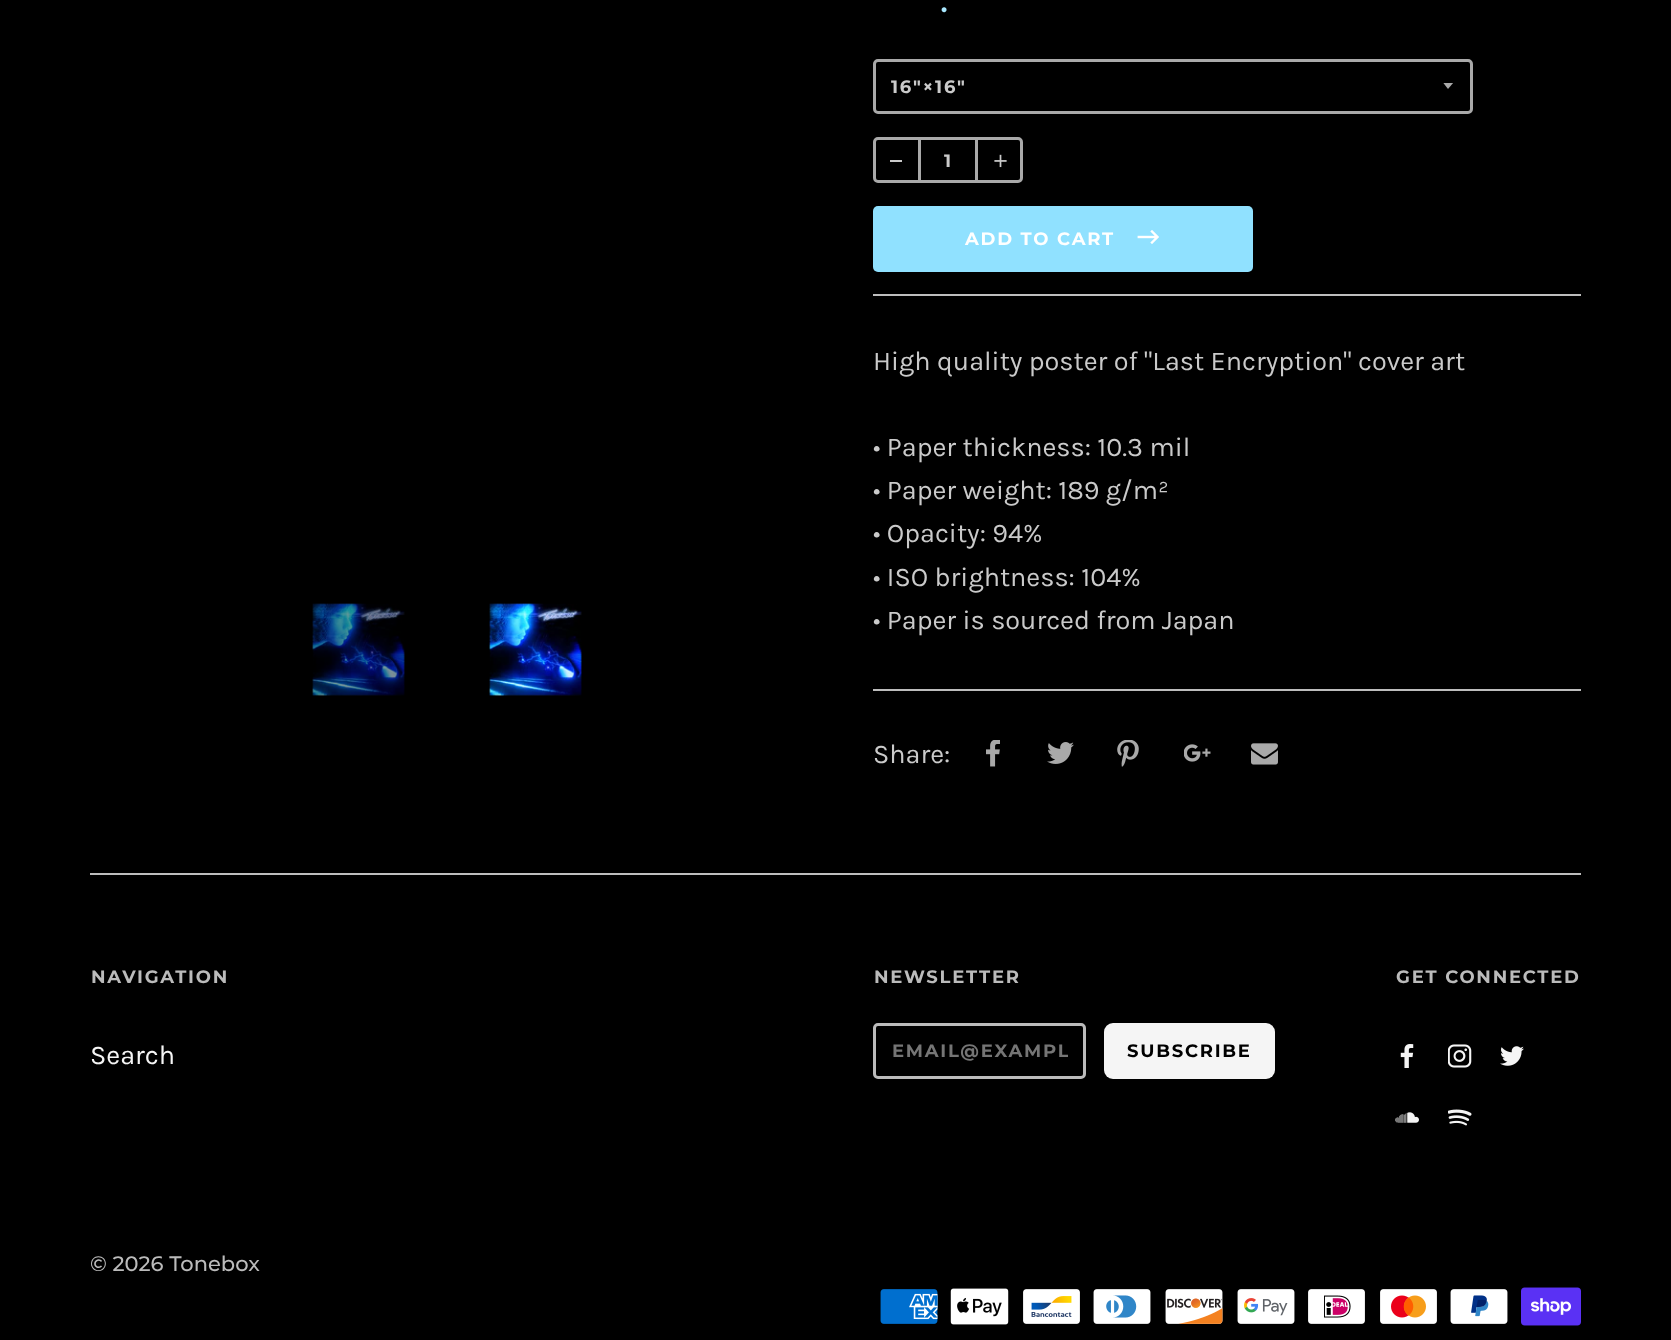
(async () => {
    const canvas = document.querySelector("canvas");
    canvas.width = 1671;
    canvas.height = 1340;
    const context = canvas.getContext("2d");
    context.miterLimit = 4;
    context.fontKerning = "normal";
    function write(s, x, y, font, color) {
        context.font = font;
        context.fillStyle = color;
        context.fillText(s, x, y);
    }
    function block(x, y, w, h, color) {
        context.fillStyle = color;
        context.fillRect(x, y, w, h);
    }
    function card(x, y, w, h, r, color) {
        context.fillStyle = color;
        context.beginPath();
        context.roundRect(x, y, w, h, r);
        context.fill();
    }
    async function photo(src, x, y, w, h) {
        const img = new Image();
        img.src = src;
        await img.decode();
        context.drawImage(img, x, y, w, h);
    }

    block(0, 0, 1671, 1340, "rgb(0, 0, 0)");
    await photo("media/1.png", 312, 603, 93, 93);
    await photo("media/2.png", 489, 603, 93, 93);
    write(".", 940, 12, "500 36px Montserrat", "rgb(169, 232, 255)");
    context.save();
    context.beginPath();
    context.rect(1443, 83, 12, 7);
    context.clip();
    context.fillStyle = "rgb(169, 169, 169)";
    context.beginPath();
    context.moveTo(1443, 82.5);
    context.lineTo(1448, 89);
    context.lineTo(1453.5, 82.5);
    context.closePath();
    context.fill();
    context.restore();
    context.beginPath();
    context.roundRect(874.5, 60.5, 597, 52, 3.5);
    context.strokeStyle = "rgb(169, 169, 169)";
    context.lineWidth = 3;
    context.stroke();
    context.letterSpacing = "1.75px";
    write("16″×16″", 891, 93, "bold 18px Montserrat", "rgb(202, 202, 202)");
    context.beginPath();
    context.roundRect(874.5, 138.5, 147, 43, 3.5);
    context.stroke();
    block(918, 137, 3, 46, "rgb(169, 169, 169)");
    block(890, 160, 12, 2, "rgb(202, 202, 202)");
    write("1", 944, 167, "bold 18px Montserrat", "rgb(202, 202, 202)");
    block(975, 137, 3, 46, "rgb(169, 169, 169)");
    await photo("media/3.png", 994, 154, 13, 14);
    card(873, 206, 380, 66, 5, "rgb(144, 225, 255)");
    write("ADD TO CART", 965, 245, "bold 18px Montserrat", "rgb(255, 255, 255)");
    await photo("media/4.png", 1137, 230, 22, 14);
    block(873, 294, 708, 2, "rgb(189, 189, 189)");
    context.letterSpacing = "0px";
    write("High quality poster of \"Last Encryption\" cover art", 873, 370, "27px Karla", "rgb(202, 202, 202)");
    write("• Paper thickness: 10.3 mil", 873, 456, "27px Karla", "rgb(202, 202, 202)");
    write("• Paper weight: 189 g/m²", 873, 499, "27px Karla", "rgb(202, 202, 202)");
    write("• Opacity: 94%", 873, 542, "27px Karla", "rgb(202, 202, 202)");
    write("• ISO brightness: 104%", 873, 586, "27px Karla", "rgb(202, 202, 202)");
    write("• Paper is sourced from Japan", 873, 629, "27px Karla", "rgb(202, 202, 202)");
    block(873, 689, 708, 2, "rgb(189, 189, 189)");
    write("Share:", 873, 763, "27px Karla", "rgb(202, 202, 202)");
    await photo("media/5.png", 986, 740, 14, 27);
    await photo("media/6.png", 1047, 742, 27, 22);
    await photo("media/7.png", 1117, 740, 22, 27);
    await photo("media/8.png", 1184, 744, 27, 18);
    await photo("media/9.png", 1251, 743, 27, 22);
    block(90, 873, 1491, 2, "rgb(189, 189, 189)");
    context.letterSpacing = "1.75px";
    write("NAVIGATION", 91, 983, "bold 18px Montserrat", "rgb(187, 187, 187)");
    context.letterSpacing = "0px";
    write("Search", 90, 1064, "27px Karla", "rgb(245, 245, 245)");
    context.letterSpacing = "1.75px";
    write("NEWSLETTER", 874, 983, "bold 18px Montserrat", "rgb(187, 187, 187)");
    context.beginPath();
    context.roundRect(874.5, 1024.5, 210, 53, 3.5);
    context.strokeStyle = "rgb(187, 187, 187)";
    context.stroke();
    context.save();
    context.beginPath();
    context.rect(891, 1040, 177, 22);
    context.clip();
    write("EMAIL@EXAMPL", 892, 1057, "bold 18px Montserrat", "rgb(117, 117, 117)");
    context.restore();
    card(1104, 1023, 171, 56, 9, "rgb(245, 245, 245)");
    write("SUBSCRIBE", 1127, 1057, "bold 18px Montserrat", "rgb(0, 0, 0)");
    write("GET CONNECTED", 1396, 983, "bold 18px Montserrat", "rgb(187, 187, 187)");
    await photo("media/10.png", 1400, 1044, 14, 24);
    await photo("media/11.png", 1448, 1044, 24, 24);
    await photo("media/12.png", 1500, 1046, 24, 20);
    await photo("media/13.png", 1395, 1112, 24, 11);
    await photo("media/14.png", 1448, 1109, 24, 17);
    context.letterSpacing = "0px";
    write("© 2026 Tonebox", 90, 1271, "500 21px Montserrat", "rgb(187, 187, 187)");
    await photo("media/15.png", 880, 1289, 58, 35);
    await photo("media/16.png", 950, 1288, 59, 37);
    await photo("media/17.png", 1023, 1289, 57, 35);
    await photo("media/18.png", 1093, 1289, 58, 35);
    await photo("media/19.png", 1165, 1289, 58, 35);
    await photo("media/20.png", 1237, 1289, 58, 35);
    await photo("media/21.png", 1308, 1289, 57, 35);
    await photo("media/22.png", 1380, 1289, 57, 35);
    await photo("media/23.png", 1450, 1289, 58, 35);
    await photo("media/24.png", 1521, 1287, 60, 39);
})();
